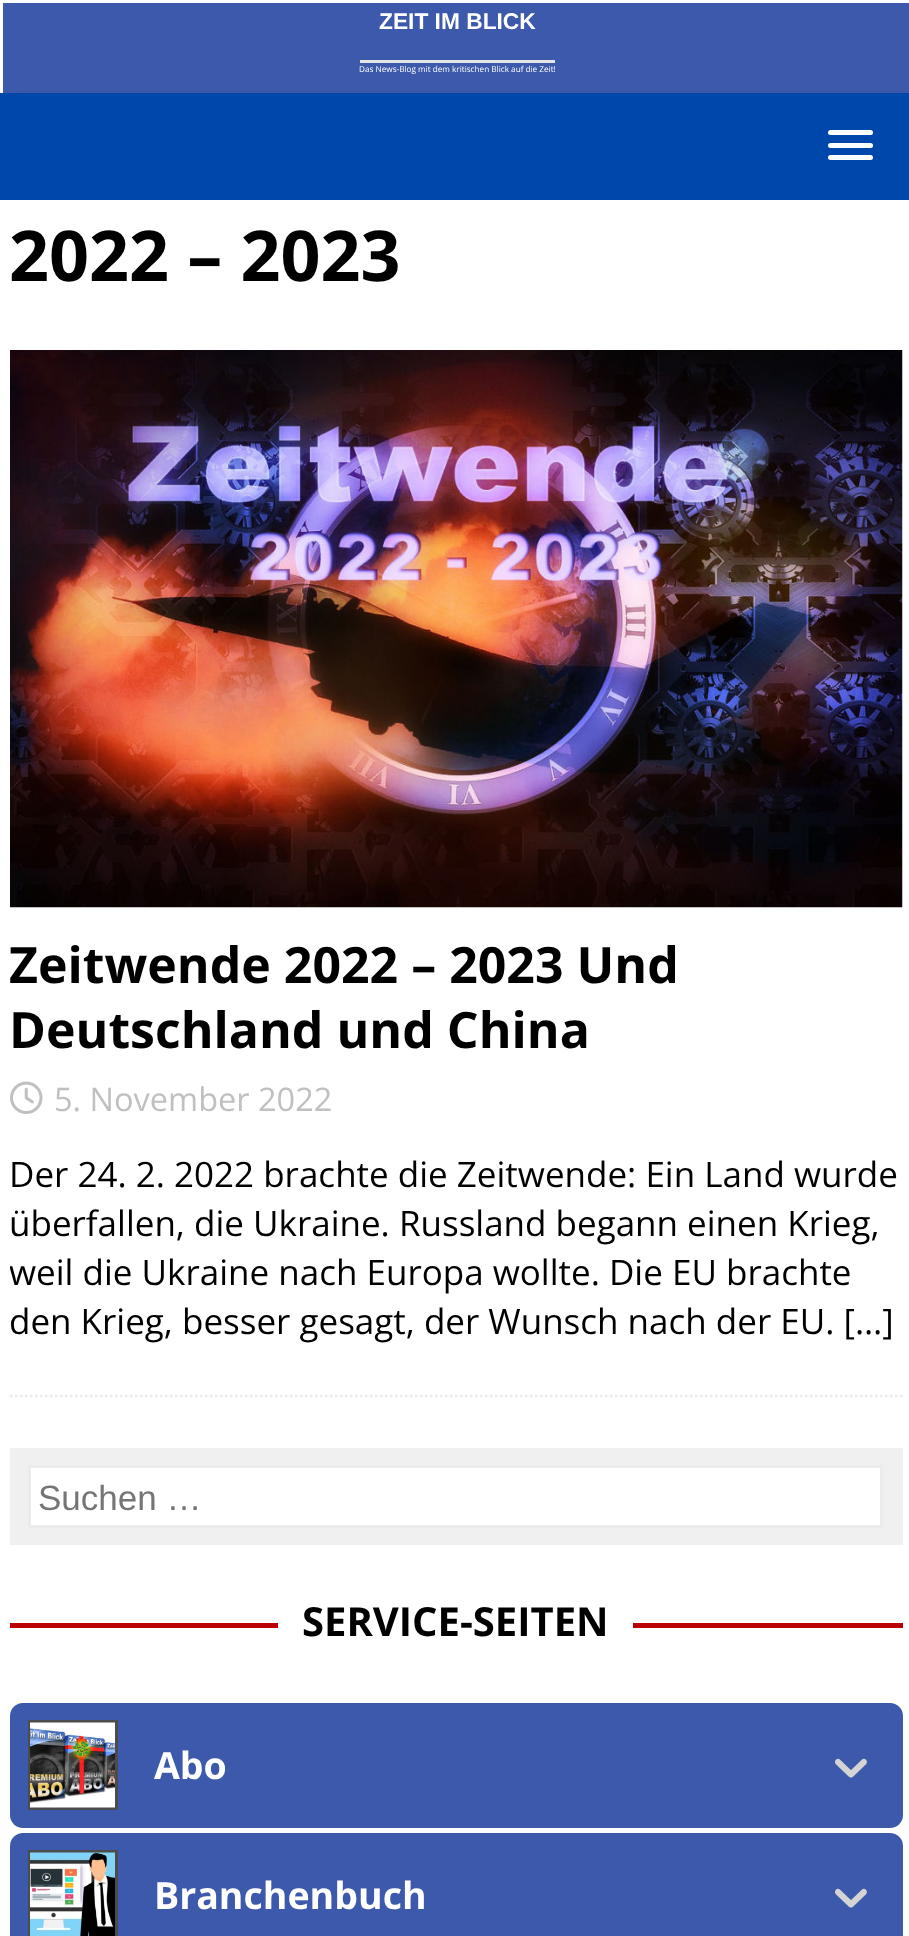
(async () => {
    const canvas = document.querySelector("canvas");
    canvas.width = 909;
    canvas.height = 1936;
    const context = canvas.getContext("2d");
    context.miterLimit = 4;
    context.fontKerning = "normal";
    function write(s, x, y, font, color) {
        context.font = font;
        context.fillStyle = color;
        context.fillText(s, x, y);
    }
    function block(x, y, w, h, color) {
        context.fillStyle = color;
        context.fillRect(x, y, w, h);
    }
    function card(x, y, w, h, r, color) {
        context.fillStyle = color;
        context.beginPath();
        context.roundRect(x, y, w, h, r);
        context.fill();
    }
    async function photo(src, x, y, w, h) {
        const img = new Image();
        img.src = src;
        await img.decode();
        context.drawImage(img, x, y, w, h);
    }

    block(0, 0, 909, 1936, "rgb(0, 71, 171)");
    block(0, 0, 909, 3, "rgb(255, 255, 255)");
    block(0, 0, 3, 93, "rgb(255, 255, 255)");
    block(3, 3, 906, 90, "rgb(61, 89, 171)");
    write("ZEIT IM BLICK", 379, 29, "bold 22.75px Liberation Sans", "rgb(255, 255, 255)");
    block(360, 60, 195, 3, "rgb(229, 229, 229)");
    write("Das News-Blog mit dem kritischen Blick auf die Zeit!", 359, 72, "8.2px Open Sans", "rgb(255, 255, 255)");
    card(828, 130, 45, 5, 2.5, "rgb(255, 255, 255)");
    card(828, 143, 45, 5, 2.5, "rgb(255, 255, 255)");
    card(828, 155, 45, 5, 2.5, "rgb(255, 255, 255)");
    block(0, 200, 909, 1736, "rgb(255, 255, 255)");
    write("2022 – 2023", 9, 281, "bold 70px Open Sans", "rgb(0, 0, 0)");
    context.beginPath();
    context.moveTo(10, 1396);
    context.lineTo(902.5, 1396);
    context.strokeStyle = "rgb(235, 235, 235)";
    context.lineWidth = 2.5;
    context.setLineDash([2.5, 2.5]);
    context.stroke();
    await photo("media/1.png", 10, 350, 893, 558);
    write("Zeitwende 2022 – 2023 Und", 9, 983, "bold 50px Open Sans", "rgb(0, 0, 0)");
    write("Deutschland und China", 9, 1048, "bold 50px Open Sans", "rgb(0, 0, 0)");
    await photo("media/2.png", 10, 1081, 33, 33);
    write("5. November 2022", 54, 1111, "32.5px Open Sans", "rgb(192, 192, 192)");
    write("Der 24. 2. 2022 brachte die Zeitwende: Ein Land wurde", 9, 1187, "35px Open Sans", "rgb(0, 0, 0)");
    write("überfallen, die Ukraine. Russland begann einen Krieg,", 9, 1236, "35px Open Sans", "rgb(0, 0, 0)");
    context.save();
    context.beginPath();
    context.rect(10, 208, 893, 1190);
    context.clip();
    write("weil die Ukraine nach Europa wollte. Die EU brachte", 9, 1285, "35px Open Sans", "rgb(0, 0, 0)");
    context.restore();
    write("den Krieg, besser gesagt, der Wunsch nach der EU. […]", 9, 1334, "35px Open Sans", "rgb(0, 0, 0)");
    block(10, 1448, 893, 97, "rgb(240, 240, 240)");
    context.fillStyle = "rgb(255, 255, 255)";
    context.beginPath();
    context.rect(29.5, 1466.5, 852, 60);
    context.fill();
    context.lineWidth = 3;
    context.setLineDash([]);
    context.stroke();
    write("Suchen …", 38, 1510, "35px Liberation Sans", "rgb(117, 117, 117)");
    block(10, 1623, 893, 5, "rgb(186, 0, 0)");
    block(278, 1623, 355, 5, "rgb(255, 255, 255)");
    write("SERVICE-SEITEN", 302, 1636, "bold 40px Open Sans", "rgb(0, 0, 0)");
    card(10, 1703, 893, 125, 13, "rgb(61, 89, 171)");
    block(28, 1720, 90, 90, "rgb(76, 76, 76)");
    await photo("media/3.png", 30, 1722, 85, 86);
    write("Abo", 154, 1779, "bold 37.5px Open Sans", "rgb(255, 255, 255)");
    await photo("media/4.png", 835, 1758, 32, 20);
    card(10, 1833, 893, 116, 13, "rgb(61, 89, 171)");
    block(28, 1850, 90, 86, "rgb(76, 76, 76)");
    await photo("media/5.png", 30, 1852, 85, 84);
    write("Branchenbuch", 154, 1909, "bold 37.5px Open Sans", "rgb(255, 255, 255)");
    await photo("media/4.png", 835, 1888, 32, 20);
})();
